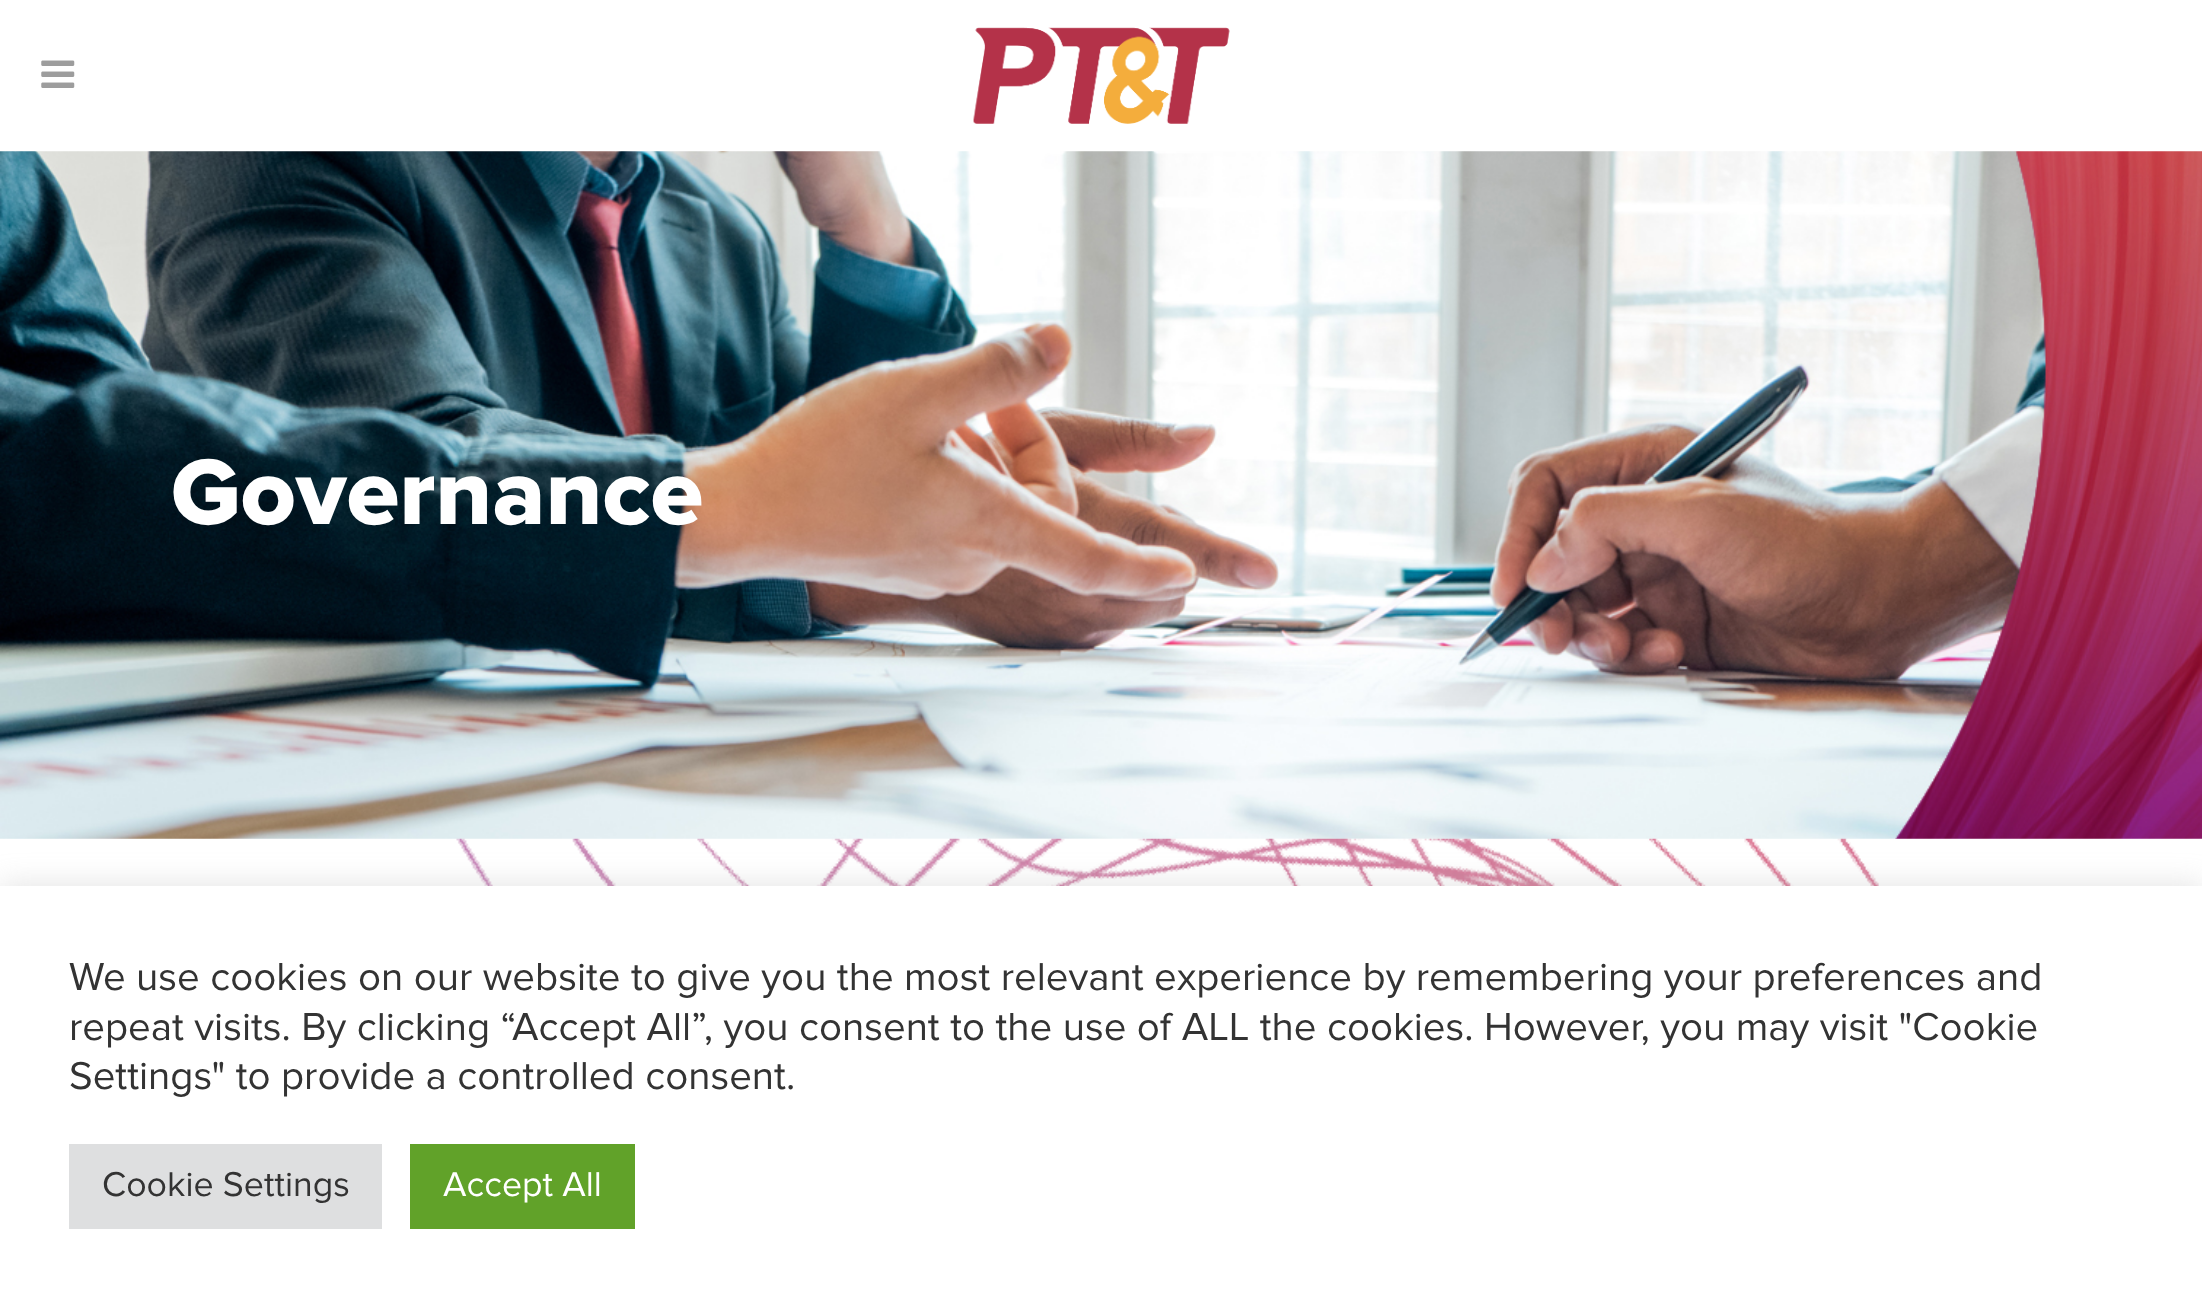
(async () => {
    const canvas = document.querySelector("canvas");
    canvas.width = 2202;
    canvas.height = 1310;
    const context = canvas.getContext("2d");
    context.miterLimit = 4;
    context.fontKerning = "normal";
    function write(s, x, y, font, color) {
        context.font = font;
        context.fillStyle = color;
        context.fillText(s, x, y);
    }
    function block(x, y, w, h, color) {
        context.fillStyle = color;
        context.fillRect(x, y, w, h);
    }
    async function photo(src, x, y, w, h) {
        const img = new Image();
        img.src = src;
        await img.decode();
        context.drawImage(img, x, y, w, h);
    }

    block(0, 0, 2202, 1310, "rgb(255, 255, 255)");
    await photo("media/1.png", 41, 60, 34, 28);
    await photo("media/2.png", 973, 27, 257, 97);
    await photo("media/3.png", 0, 151, 2202, 688);
    write("Governance", 171, 524, "800 96.25px Proxima Nova", "rgb(255, 255, 255)");
    await photo("media/4.png", 456, 838, 1423, 48);
    context.fillStyle = "rgba(172, 171, 171, 0.3)";
    context.filter = "blur(14px)";
    context.beginPath();
    context.rect(0, 883, 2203, 426);
    context.fill();
    context.filter = "none";
    block(0, 886, 2202, 424, "rgb(255, 255, 255)");
    write("We use cookies on our website to give you the most relevant experience by remembering your preferences and", 69, 990, "40.35px Proxima Nova", "rgb(51, 51, 51)");
    write("repeat visits. By clicking “Accept All”, you consent to the use of ALL the cookies. However, you may visit \"Cookie", 69, 1040, "40.35px Proxima Nova", "rgb(51, 51, 51)");
    write("Settings\" to provide a controlled consent.", 69, 1089, "40.35px Proxima Nova", "rgb(51, 51, 51)");
    block(69, 1144, 313, 85, "rgb(222, 223, 224)");
    write("Cookie Settings", 102, 1196, "35.75px Proxima Nova", "rgb(51, 51, 51)");
    block(410, 1144, 225, 85, "rgb(97, 162, 41)");
    write("Accept All", 443, 1196, "35.75px Proxima Nova", "rgb(255, 255, 255)");
})();
